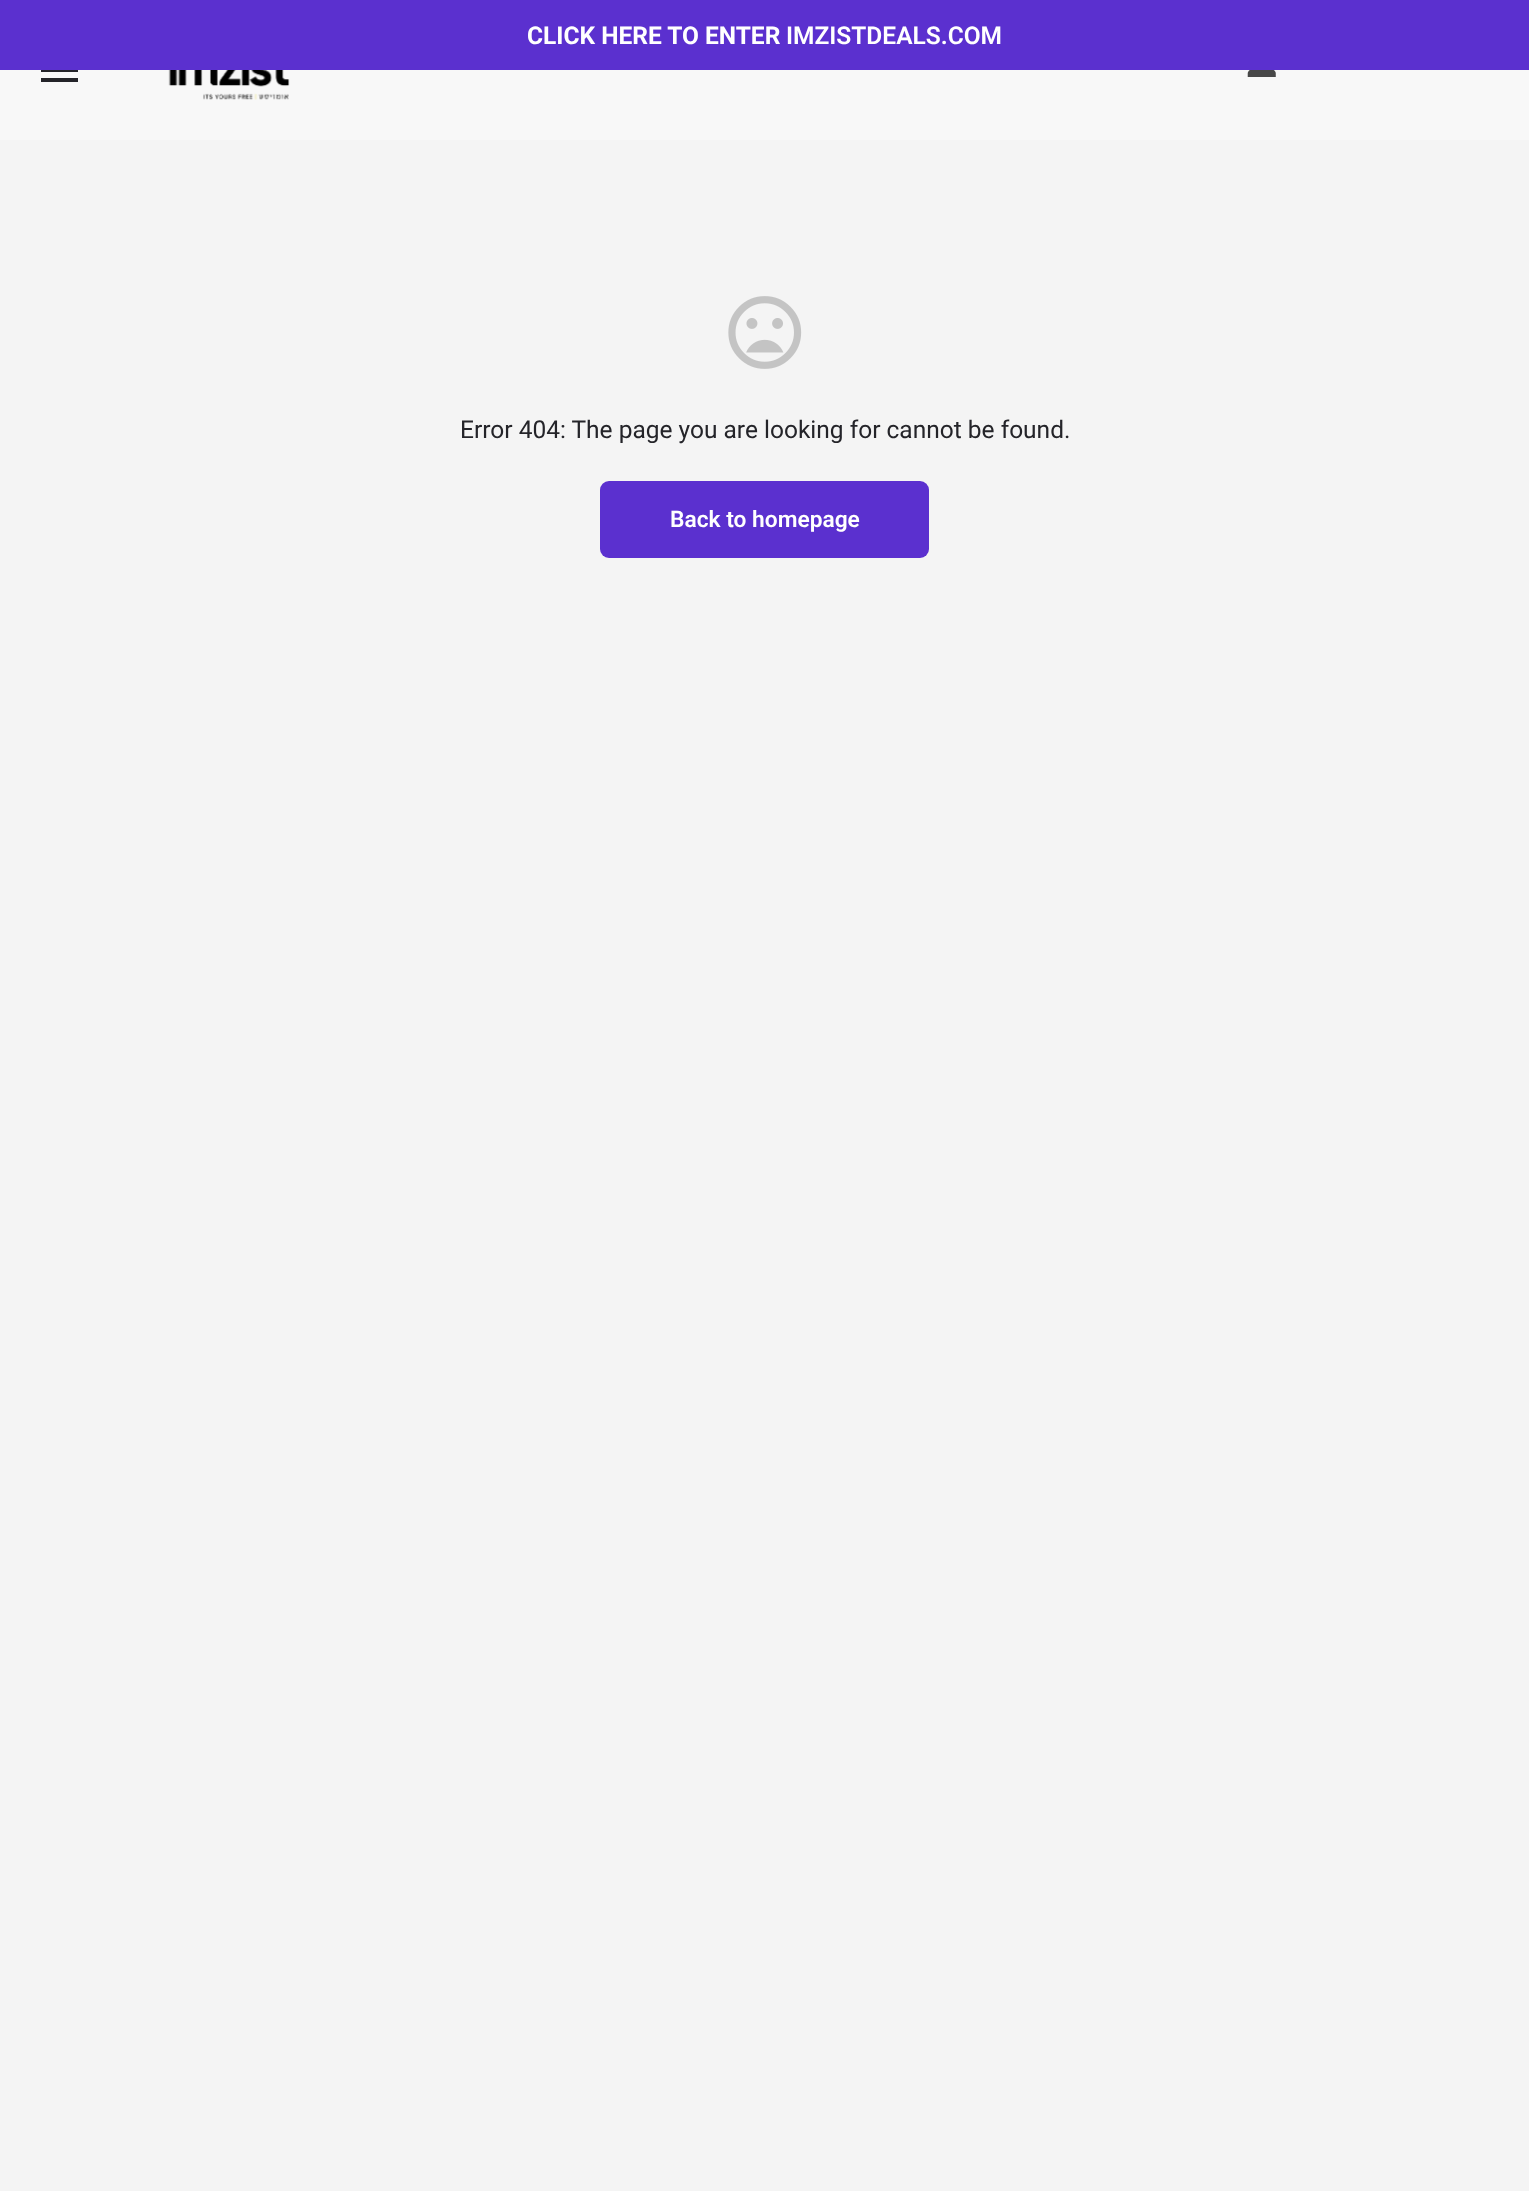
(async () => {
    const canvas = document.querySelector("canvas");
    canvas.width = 1529;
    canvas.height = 2191;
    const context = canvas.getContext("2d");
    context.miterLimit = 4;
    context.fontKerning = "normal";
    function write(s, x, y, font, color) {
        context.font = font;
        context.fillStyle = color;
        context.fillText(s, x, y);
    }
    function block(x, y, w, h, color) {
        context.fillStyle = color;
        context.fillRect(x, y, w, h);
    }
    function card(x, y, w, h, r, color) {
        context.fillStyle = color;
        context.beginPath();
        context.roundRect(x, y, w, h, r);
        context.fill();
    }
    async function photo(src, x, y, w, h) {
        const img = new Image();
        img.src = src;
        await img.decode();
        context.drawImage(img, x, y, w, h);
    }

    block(0, 0, 1529, 2191, "rgb(244, 244, 244)");
    block(0, 70, 1529, 70, "rgb(248, 248, 248)");
    context.fillStyle = "rgb(36, 36, 41)";
    context.beginPath();
    context.moveTo(41, 58);
    context.lineTo(78, 58);
    context.lineTo(78, 62);
    context.lineTo(41, 62);
    context.closePath();
    context.moveTo(41, 72);
    context.lineTo(41, 68);
    context.lineTo(78, 68);
    context.lineTo(78, 72);
    context.closePath();
    context.moveTo(41, 82);
    context.lineTo(41, 78);
    context.lineTo(78, 78);
    context.lineTo(78, 82);
    context.closePath();
    context.fill();
    block(0, 0, 1529, 70, "rgb(91, 48, 207)");
    write("CLICK HERE TO ENTER", 527, 44, "bold 24.5px Roboto", "rgb(255, 255, 255)");
    write("IMZISTDEALS.COM", 786, 44, "600 24.5px Roboto", "rgb(255, 255, 255)");
    await photo("media/1.png", 168, 70, 122, 30);
    await photo("media/2.png", 1247, 70, 29, 7);
    await photo("media/3.png", 728, 296, 74, 73);
    write("Error 404: The page you are looking for cannot be found.", 460, 438, "24.5px Roboto", "rgb(36, 36, 41)");
    card(600, 481, 329, 77, 9, "rgb(91, 48, 207)");
    write("Back to homepage", 670, 527, "600 22.75px Roboto", "rgb(255, 255, 255)");
})();
